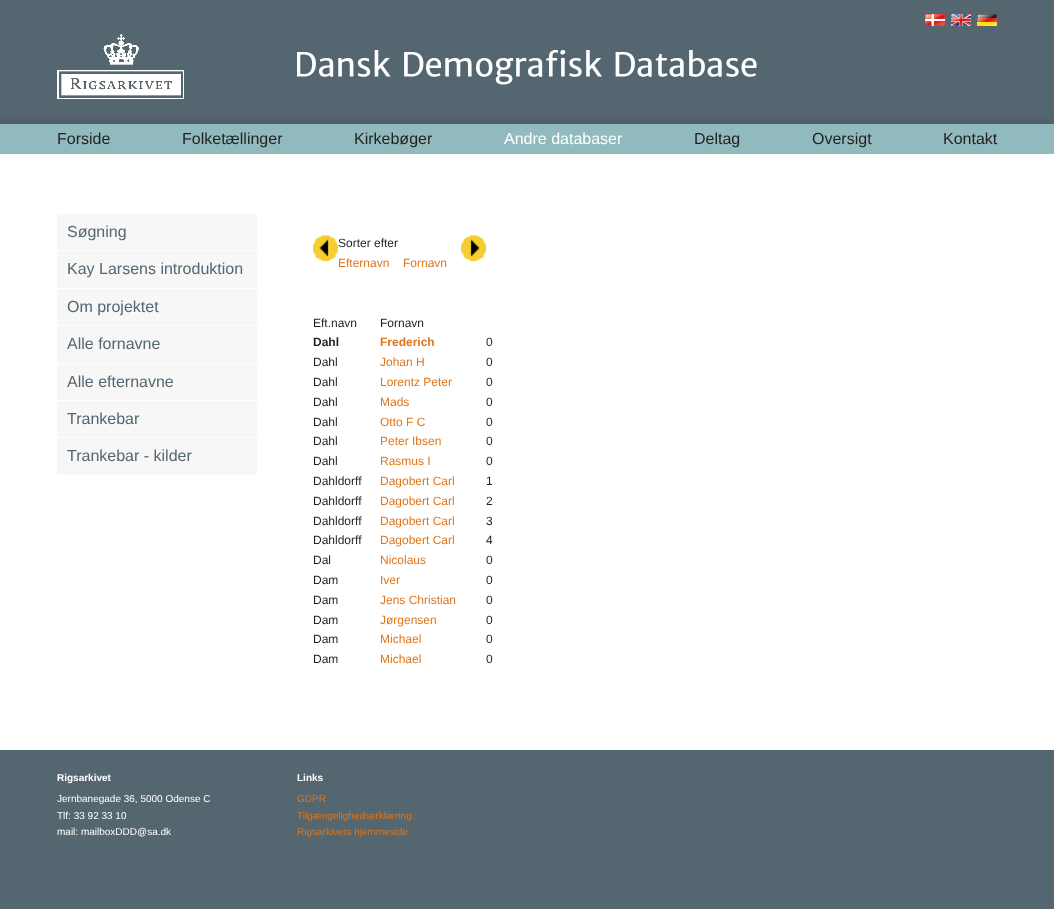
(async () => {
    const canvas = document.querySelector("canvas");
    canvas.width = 1054;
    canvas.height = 909;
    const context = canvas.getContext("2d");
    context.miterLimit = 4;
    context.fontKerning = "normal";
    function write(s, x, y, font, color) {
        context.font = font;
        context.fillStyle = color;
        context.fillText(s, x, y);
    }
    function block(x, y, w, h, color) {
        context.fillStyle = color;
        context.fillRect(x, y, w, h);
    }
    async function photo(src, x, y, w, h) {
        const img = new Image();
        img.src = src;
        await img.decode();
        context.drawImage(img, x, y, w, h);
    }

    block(0, 0, 1054, 909, "rgb(84, 102, 112)");
    await photo("media/1.png", 925, 14, 20, 12);
    await photo("media/2.png", 951, 14, 20, 12);
    await photo("media/3.png", 977, 14, 20, 12);
    await photo("media/4.png", 57, 34, 127, 65);
    await photo("media/5.png", 297, 50, 460, 35);
    context.fillStyle = "rgba(0, 0, 0, 0.16)";
    context.filter = "blur(6.5px)";
    context.beginPath();
    context.rect(-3, 124, 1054, 30);
    context.fill();
    context.filter = "none";
    block(0, 124, 1054, 30, "rgb(145, 186, 191)");
    write("Forside", 57, 144, "16px Liberation Sans", "rgb(35, 31, 32)");
    write("Folketællinger", 182, 144, "16px Liberation Sans", "rgb(35, 31, 32)");
    write("Kirkebøger", 354, 144, "16px Liberation Sans", "rgb(35, 31, 32)");
    write("Andre databaser", 504, 144, "16px Liberation Sans", "rgb(255, 255, 255)");
    write("Deltag", 694, 144, "16px Liberation Sans", "rgb(35, 31, 32)");
    write("Oversigt", 812, 144, "16px Liberation Sans", "rgb(35, 31, 32)");
    write("Kontakt", 943, 144, "16px Liberation Sans", "rgb(35, 31, 32)");
    block(0, 154, 1054, 596, "rgb(255, 255, 255)");
    block(57, 214, 200, 36, "rgb(247, 247, 247)");
    write("Søgning", 67, 237, "16px Liberation Sans", "rgb(84, 102, 112)");
    block(57, 251, 200, 37, "rgb(247, 247, 247)");
    write("Kay Larsens introduktion", 67, 274, "16px Liberation Sans", "rgb(84, 102, 112)");
    block(57, 289, 200, 36, "rgb(247, 247, 247)");
    write("Om projektet", 67, 312, "16px Liberation Sans", "rgb(84, 102, 112)");
    block(57, 326, 200, 37, "rgb(247, 247, 247)");
    write("Alle fornavne", 67, 349, "16px Liberation Sans", "rgb(84, 102, 112)");
    block(57, 364, 200, 36, "rgb(247, 247, 247)");
    write("Alle efternavne", 67, 387, "16px Liberation Sans", "rgb(84, 102, 112)");
    block(57, 401, 200, 36, "rgb(247, 247, 247)");
    write("Trankebar", 67, 424, "16px Liberation Sans", "rgb(84, 102, 112)");
    block(57, 438, 200, 37, "rgb(247, 247, 247)");
    write("Trankebar - kilder", 67, 461, "16px Liberation Sans", "rgb(84, 102, 112)");
    await photo("media/6.png", 313, 235, 25, 26);
    write("Sorter efter", 338, 247, "12px Liberation Sans", "rgb(35, 31, 32)");
    await photo("media/7.png", 461, 235, 25, 26);
    write("Efternavn", 338, 267, "12px Liberation Sans", "rgb(222, 118, 28)");
    write("Fornavn", 403, 267, "12px Liberation Sans", "rgb(222, 118, 28)");
    write("Eft.navn", 313, 327, "12px Liberation Sans", "rgb(35, 31, 32)");
    write("Fornavn", 380, 327, "12px Liberation Sans", "rgb(35, 31, 32)");
    write("Dahl", 313, 346, "bold 12px Liberation Sans", "rgb(35, 31, 32)");
    write("Frederich", 380, 346, "bold 12px Liberation Sans", "rgb(222, 118, 28)");
    write("0", 486, 346, "12px Liberation Sans", "rgb(35, 31, 32)");
    write("Dahl", 313, 366, "12px Liberation Sans", "rgb(35, 31, 32)");
    write("Johan H", 380, 366, "12px Liberation Sans", "rgb(222, 118, 28)");
    write("0", 486, 366, "12px Liberation Sans", "rgb(35, 31, 32)");
    write("Dahl", 313, 386, "12px Liberation Sans", "rgb(35, 31, 32)");
    write("Lorentz Peter", 380, 386, "12px Liberation Sans", "rgb(222, 118, 28)");
    write("0", 486, 386, "12px Liberation Sans", "rgb(35, 31, 32)");
    write("Dahl", 313, 406, "12px Liberation Sans", "rgb(35, 31, 32)");
    write("Mads", 380, 406, "12px Liberation Sans", "rgb(222, 118, 28)");
    write("0", 486, 406, "12px Liberation Sans", "rgb(35, 31, 32)");
    write("Dahl", 313, 426, "12px Liberation Sans", "rgb(35, 31, 32)");
    write("Otto F C", 380, 426, "12px Liberation Sans", "rgb(222, 118, 28)");
    write("0", 486, 426, "12px Liberation Sans", "rgb(35, 31, 32)");
    write("Dahl", 313, 445, "12px Liberation Sans", "rgb(35, 31, 32)");
    write("Peter Ibsen", 380, 445, "12px Liberation Sans", "rgb(222, 118, 28)");
    write("0", 486, 445, "12px Liberation Sans", "rgb(35, 31, 32)");
    write("Dahl", 313, 465, "12px Liberation Sans", "rgb(35, 31, 32)");
    write("Rasmus I", 380, 465, "12px Liberation Sans", "rgb(222, 118, 28)");
    write("0", 486, 465, "12px Liberation Sans", "rgb(35, 31, 32)");
    write("Dahldorff", 313, 485, "12px Liberation Sans", "rgb(35, 31, 32)");
    write("Dagobert Carl", 380, 485, "12px Liberation Sans", "rgb(222, 118, 28)");
    write("1", 486, 485, "12px Liberation Sans", "rgb(35, 31, 32)");
    write("Dahldorff", 313, 505, "12px Liberation Sans", "rgb(35, 31, 32)");
    write("Dagobert Carl", 380, 505, "12px Liberation Sans", "rgb(222, 118, 28)");
    write("2", 486, 505, "12px Liberation Sans", "rgb(35, 31, 32)");
    write("Dahldorff", 313, 525, "12px Liberation Sans", "rgb(35, 31, 32)");
    write("Dagobert Carl", 380, 525, "12px Liberation Sans", "rgb(222, 118, 28)");
    write("3", 486, 525, "12px Liberation Sans", "rgb(35, 31, 32)");
    write("Dahldorff", 313, 544, "12px Liberation Sans", "rgb(35, 31, 32)");
    write("Dagobert Carl", 380, 544, "12px Liberation Sans", "rgb(222, 118, 28)");
    write("4", 486, 544, "12px Liberation Sans", "rgb(35, 31, 32)");
    write("Dal", 313, 564, "12px Liberation Sans", "rgb(35, 31, 32)");
    write("Nicolaus", 380, 564, "12px Liberation Sans", "rgb(222, 118, 28)");
    write("0", 486, 564, "12px Liberation Sans", "rgb(35, 31, 32)");
    write("Dam", 313, 584, "12px Liberation Sans", "rgb(35, 31, 32)");
    write("Iver", 380, 584, "12px Liberation Sans", "rgb(222, 118, 28)");
    write("0", 486, 584, "12px Liberation Sans", "rgb(35, 31, 32)");
    write("Dam", 313, 604, "12px Liberation Sans", "rgb(35, 31, 32)");
    write("Jens Christian", 380, 604, "12px Liberation Sans", "rgb(222, 118, 28)");
    write("0", 486, 604, "12px Liberation Sans", "rgb(35, 31, 32)");
    write("Dam", 313, 624, "12px Liberation Sans", "rgb(35, 31, 32)");
    write("Jørgensen", 380, 624, "12px Liberation Sans", "rgb(222, 118, 28)");
    write("0", 486, 624, "12px Liberation Sans", "rgb(35, 31, 32)");
    write("Dam", 313, 643, "12px Liberation Sans", "rgb(35, 31, 32)");
    write("Michael", 380, 643, "12px Liberation Sans", "rgb(222, 118, 28)");
    write("0", 486, 643, "12px Liberation Sans", "rgb(35, 31, 32)");
    write("Dam", 313, 663, "12px Liberation Sans", "rgb(35, 31, 32)");
    write("Michael", 380, 663, "12px Liberation Sans", "rgb(222, 118, 28)");
    write("0", 486, 663, "12px Liberation Sans", "rgb(35, 31, 32)");
    write("Rigsarkivet", 57, 781, "bold 10px Liberation Sans", "rgb(255, 255, 255)");
    write("Jernbanegade 36, 5000 Odense C", 57, 802, "10px Liberation Sans", "rgb(255, 255, 255)");
    write("Tlf: 33 92 33 10", 57, 819, "10px Liberation Sans", "rgb(255, 255, 255)");
    write("mail: mailboxDDD@sa.dk", 57, 835, "10px Liberation Sans", "rgb(255, 255, 255)");
    write("Links", 297, 781, "bold 10px Liberation Sans", "rgb(255, 255, 255)");
    write("GDPR", 297, 802, "10px Liberation Sans", "rgb(222, 118, 28)");
    write("Tilgængelighedserklæring", 297, 819, "10px Liberation Sans", "rgb(222, 118, 28)");
    write("Rigsarkivets hjemmeside", 297, 835, "10px Liberation Sans", "rgb(222, 118, 28)");
})();
